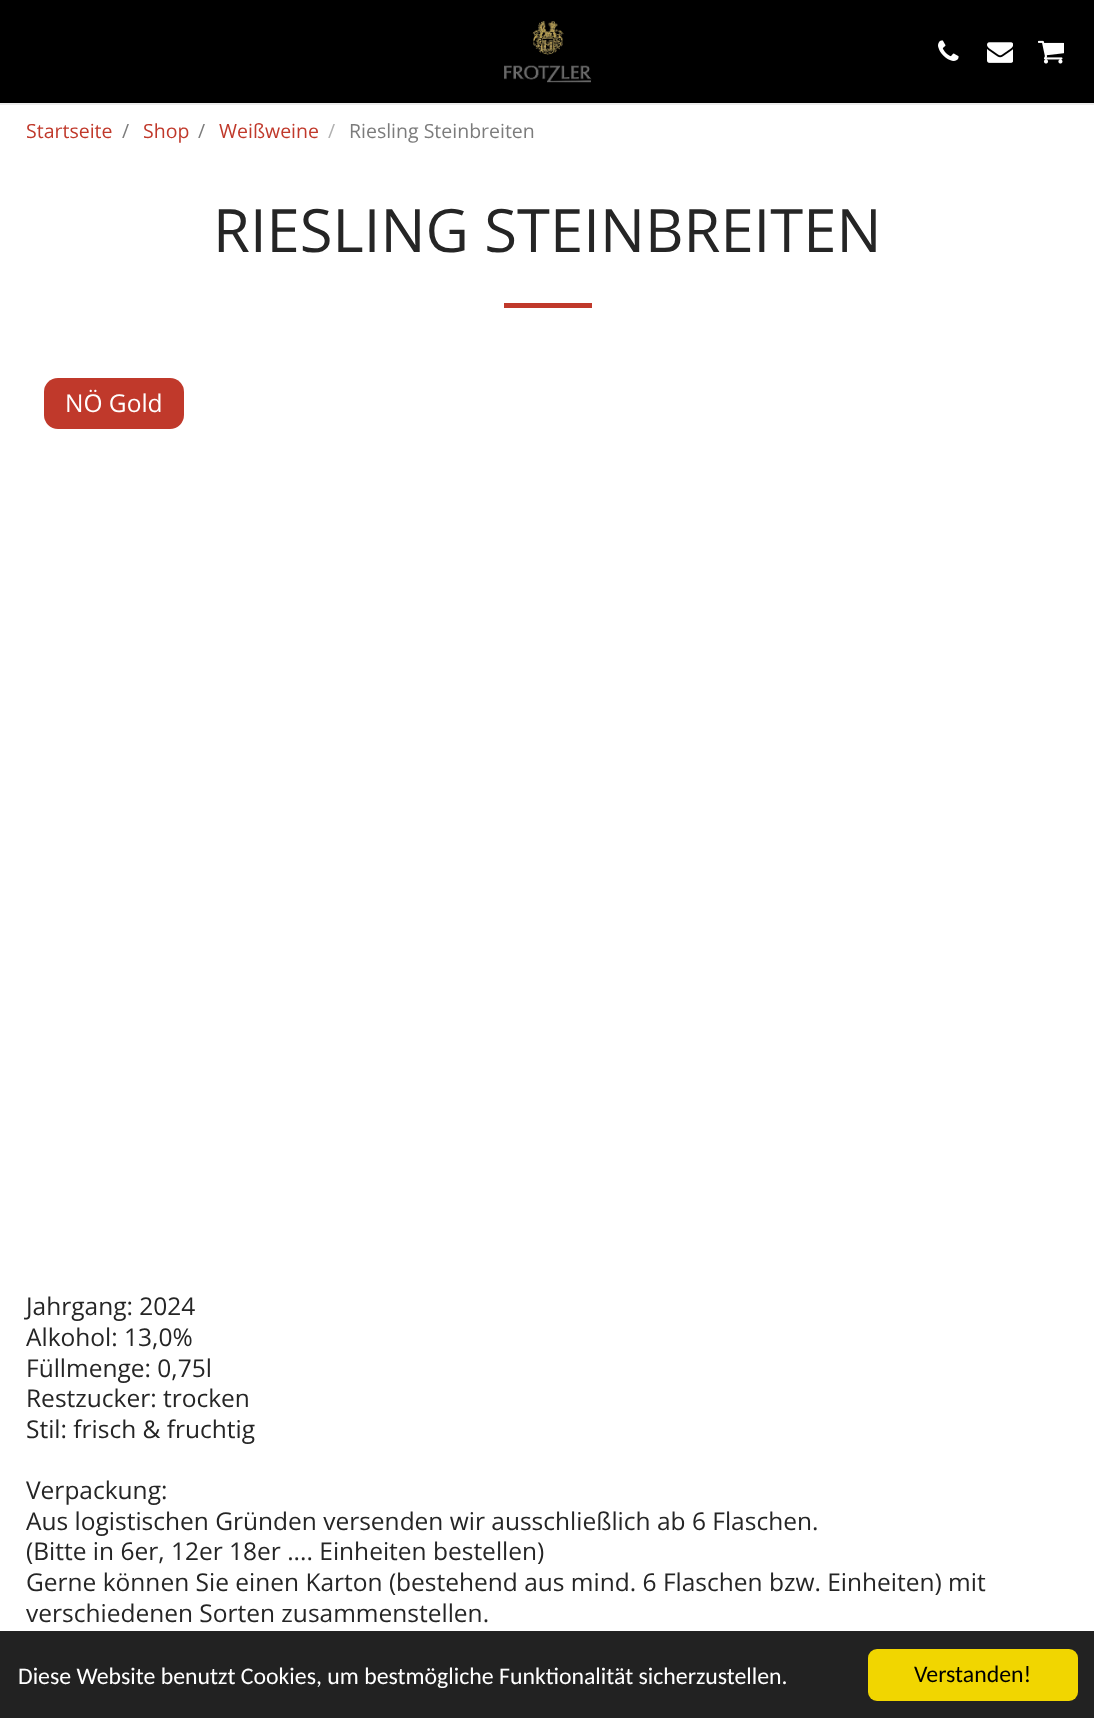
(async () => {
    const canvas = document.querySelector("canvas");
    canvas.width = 1094;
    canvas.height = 1718;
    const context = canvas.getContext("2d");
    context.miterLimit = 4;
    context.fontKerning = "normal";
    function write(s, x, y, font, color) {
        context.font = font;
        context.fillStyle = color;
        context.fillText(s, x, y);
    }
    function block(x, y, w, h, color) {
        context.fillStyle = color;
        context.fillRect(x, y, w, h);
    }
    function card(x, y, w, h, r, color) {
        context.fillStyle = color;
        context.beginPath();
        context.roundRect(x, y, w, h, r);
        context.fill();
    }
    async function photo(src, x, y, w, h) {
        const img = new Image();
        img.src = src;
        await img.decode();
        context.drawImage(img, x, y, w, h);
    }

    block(0, 0, 1094, 1718, "rgb(255, 255, 255)");
    block(0, 0, 1094, 103, "rgb(0, 0, 0)");
    block(0, 103, 1094, 2, "rgb(235, 235, 235)");
    await photo("media/1.png", 504, 21, 88, 62);
    await photo("media/2.png", 938, 40, 21, 21);
    await photo("media/3.png", 987, 42, 26, 21);
    await photo("media/4.png", 1038, 40, 26, 24);
    write("Startseite", 26, 138, "19.5px Open Sans", "rgb(192, 57, 43)");
    write("/", 122, 138, "19.5px Open Sans", "rgb(124, 124, 124)");
    write("Shop", 143, 138, "19.5px Open Sans", "rgb(192, 57, 43)");
    write("/", 198, 138, "19.5px Open Sans", "rgb(124, 124, 124)");
    write("Weißweine", 219, 138, "19.5px Open Sans", "rgb(192, 57, 43)");
    write("/", 328, 138, "19.5px Open Sans", "rgb(177, 177, 177)");
    write("Riesling Steinbreiten", 349, 138, "19.5px Open Sans", "rgb(124, 124, 124)");
    write("RIESLING STEINBREITEN", 213, 252, "59.75px Open Sans", "rgb(37, 37, 37)");
    block(504, 303, 88, 5, "rgb(192, 57, 43)");
    card(44, 378, 140, 51, 14, "rgb(192, 57, 43)");
    write("NÖ Gold", 65, 412, "24.5px Open Sans", "rgb(255, 255, 255)");
    write("Jahrgang: 2024", 26, 1315, "24.5px Open Sans", "rgb(37, 37, 37)");
    write("Alkohol: 13,0%", 26, 1346, "24.5px Open Sans", "rgb(37, 37, 37)");
    write("Füllmenge: 0,75l", 26, 1377, "24.5px Open Sans", "rgb(37, 37, 37)");
    write("Restzucker: trocken", 26, 1407, "24.5px Open Sans", "rgb(37, 37, 37)");
    write("Stil: frisch & fruchtig", 26, 1438, "24.5px Open Sans", "rgb(37, 37, 37)");
    write("Verpackung:", 26, 1499, "24.5px Open Sans", "rgb(37, 37, 37)");
    write("Aus logistischen Gründen versenden wir ausschließlich ab 6 Flaschen.", 26, 1530, "24.5px Open Sans", "rgb(37, 37, 37)");
    write("(Bitte in 6er, 12er 18er .... Einheiten bestellen)", 26, 1560, "24.5px Open Sans", "rgb(37, 37, 37)");
    write("Gerne können Sie einen Karton (bestehend aus mind. 6 Flaschen bzw. Einheiten) mit", 26, 1591, "24.5px Open Sans", "rgb(37, 37, 37)");
    write("verschiedenen Sorten zusammenstellen.", 26, 1622, "24.5px Open Sans", "rgb(37, 37, 37)");
    block(0, 1631, 1094, 87, "rgb(34, 34, 34)");
    write("Diese Website benutzt Cookies, um bestmögliche Funktionalität sicherzustellen.", 18, 1684, "23.8px Carlito", "rgb(255, 255, 255)");
    card(868, 1649, 210, 52, 9, "rgb(241, 214, 0)");
    write("Verstanden!", 914, 1682, "23.8px Carlito", "rgb(0, 0, 0)");
})();
